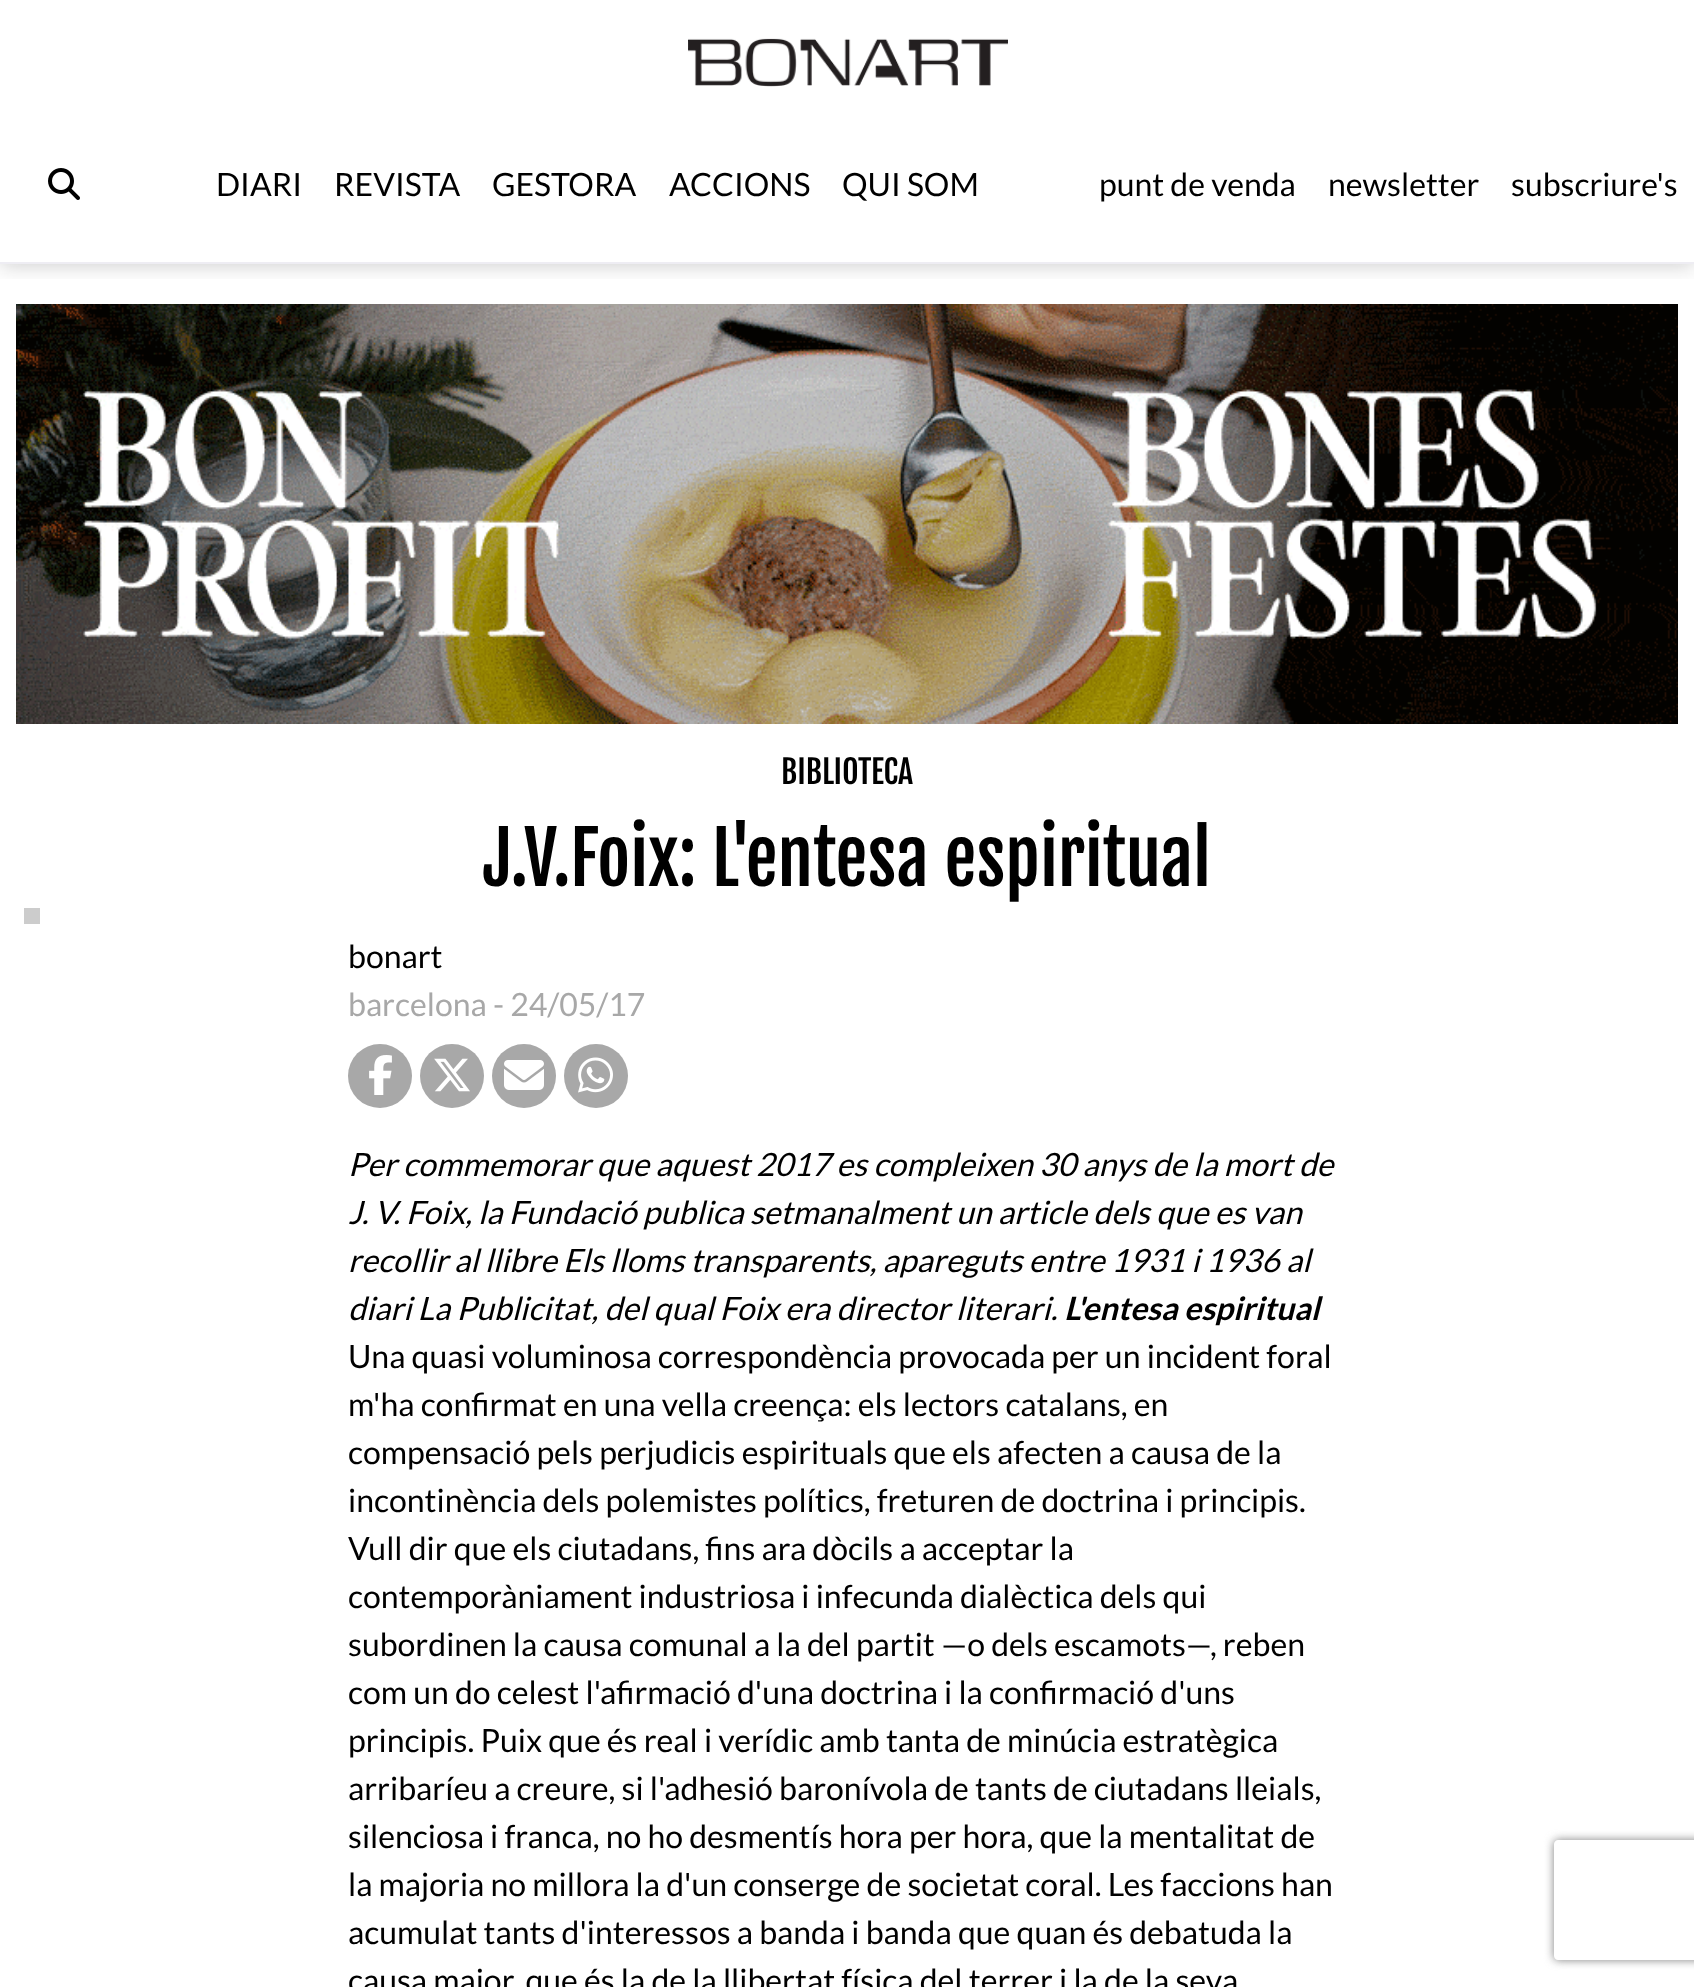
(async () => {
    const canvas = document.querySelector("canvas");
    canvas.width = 1694;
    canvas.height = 1987;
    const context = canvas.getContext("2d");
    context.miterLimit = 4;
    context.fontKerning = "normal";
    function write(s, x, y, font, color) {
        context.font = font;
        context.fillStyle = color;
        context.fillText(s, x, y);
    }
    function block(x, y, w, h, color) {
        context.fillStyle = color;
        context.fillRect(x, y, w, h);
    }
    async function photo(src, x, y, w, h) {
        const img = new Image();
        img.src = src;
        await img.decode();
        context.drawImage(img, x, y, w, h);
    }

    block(0, 0, 1694, 1987, "rgb(255, 255, 255)");
    context.save();
    context.beginPath();
    context.rect(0, 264, 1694, 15);
    context.clip();
    context.fillStyle = "rgba(15, 15, 15, 0.2)";
    context.filter = "blur(10px)";
    context.beginPath();
    context.rect(0, 2, 1694, 264);
    context.fill();
    context.filter = "none";
    context.restore();
    block(0, 262, 1694, 2, "rgb(238, 237, 243)");
    await photo("media/1.png", 688, 38, 320, 49);
    await photo("media/2.png", 48, 168, 32, 32);
    write("DIARI", 216, 196, "32px Lato", "rgb(0, 0, 0)");
    write("REVISTA", 334, 196, "32px Lato", "rgb(0, 0, 0)");
    write("GESTORA", 492, 196, "32px Lato", "rgb(0, 0, 0)");
    write("ACCIONS", 669, 196, "32px Lato", "rgb(0, 0, 0)");
    write("QUI SOM", 842, 196, "32px Lato", "rgb(0, 0, 0)");
    write("punt de venda", 1099, 196, "32px Lato", "rgb(0, 0, 0)");
    write("newsletter", 1328, 196, "32px Lato", "rgb(0, 0, 0)");
    write("subscriure's", 1511, 196, "32px Lato", "rgb(0, 0, 0)");
    await photo("media/3.png", 16, 304, 1662, 420);
    write("BIBLIOTECA", 781, 784, "32px Fjalla One", "rgb(0, 0, 0)");
    write("J.V.Foix: L'entesa espiritual", 483, 886, "72px Fjalla One", "rgb(0, 0, 0)");
    block(24, 908, 16, 16, "rgb(204, 204, 204)");
    write("bonart", 348, 968, "32px Lato", "rgb(0, 0, 0)");
    write("barcelona - 24/05/17", 348, 1016, "32px Lato", "rgb(168, 168, 168)");
    context.beginPath();
    context.arc(380, 1076, 32, 0, Math.PI * 2);
    context.fill();
    await photo("media/4.png", 369, 1055, 23, 40);
    context.beginPath();
    context.arc(452, 1076, 32, 0, Math.PI * 2);
    context.fill();
    await photo("media/5.png", 434, 1058, 36, 34);
    context.beginPath();
    context.arc(524, 1076, 32, 0, Math.PI * 2);
    context.fill();
    await photo("media/6.png", 504, 1060, 40, 30);
    context.beginPath();
    context.arc(596, 1076, 32, 0, Math.PI * 2);
    context.fill();
    await photo("media/7.png", 578, 1057, 35, 36);
    write("Per commemorar que aquest 2017 es compleixen 30 anys de la mort de", 348, 1176, "italic 32px Lato", "rgb(0, 0, 0)");
    write("J. V. Foix, la Fundació publica setmanalment un article dels que es van", 348, 1224, "italic 32px Lato", "rgb(0, 0, 0)");
    write("recollir al llibre Els lloms transparents, apareguts entre 1931 i 1936 al", 348, 1272, "italic 32px Lato", "rgb(0, 0, 0)");
    write("diari La Publicitat, del qual Foix era director literari.", 348, 1320, "italic 32px Lato", "rgb(0, 0, 0)");
    write("L'entesa espiritual", 1064, 1320, "italic bold 32px Lato", "rgb(0, 0, 0)");
    write("Una quasi voluminosa correspondència provocada per un incident foral", 348, 1368, "32px Lato", "rgb(0, 0, 0)");
    write("m'ha confirmat en una vella creença: els lectors catalans, en", 348, 1416, "32px Lato", "rgb(0, 0, 0)");
    write("compensació pels perjudicis espirituals que els afecten a causa de la", 348, 1464, "32px Lato", "rgb(0, 0, 0)");
    write("incontinència dels polemistes polítics, freturen de doctrina i principis.", 348, 1512, "32px Lato", "rgb(0, 0, 0)");
    write("Vull dir que els ciutadans, fins ara dòcils a acceptar la", 348, 1560, "32px Lato", "rgb(0, 0, 0)");
    write("contemporàniament industriosa i infecunda dialèctica dels qui", 348, 1608, "32px Lato", "rgb(0, 0, 0)");
    write("subordinen la causa comunal a la del partit —o dels escamots—, reben", 348, 1656, "32px Lato", "rgb(0, 0, 0)");
    write("com un do celest l'afirmació d'una doctrina i la confirmació d'uns", 348, 1704, "32px Lato", "rgb(0, 0, 0)");
    write("principis. Puix que és real i verídic amb tanta de minúcia estratègica", 348, 1752, "32px Lato", "rgb(0, 0, 0)");
    write("arribaríeu a creure, si l'adhesió baronívola de tants de ciutadans lleials,", 348, 1800, "32px Lato", "rgb(0, 0, 0)");
    write("silenciosa i franca, no ho desmentís hora per hora, que la mentalitat de", 348, 1848, "32px Lato", "rgb(0, 0, 0)");
    write("la majoria no millora la d'un conserge de societat coral. Les faccions han", 348, 1896, "32px Lato", "rgb(0, 0, 0)");
    write("acumulat tants d'interessos a banda i banda que quan és debatuda la", 348, 1944, "32px Lato", "rgb(0, 0, 0)");
    write("causa major, que és la de la llibertat física del terrer i la de la seva", 348, 1992, "32px Lato", "rgb(0, 0, 0)");
    context.save();
    context.beginPath();
    context.moveTo(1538, 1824);
    context.lineTo(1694, 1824);
    context.lineTo(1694, 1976);
    context.lineTo(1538, 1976);
    context.closePath();
    context.moveTo(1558, 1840);
    context.lineTo(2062, 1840);
    context.bezierCurveTo(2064, 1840, 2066, 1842, 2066, 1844);
    context.lineTo(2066, 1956);
    context.bezierCurveTo(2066, 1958, 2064, 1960, 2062, 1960);
    context.lineTo(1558, 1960);
    context.bezierCurveTo(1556, 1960, 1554, 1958, 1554, 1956);
    context.lineTo(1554, 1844);
    context.bezierCurveTo(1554, 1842, 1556, 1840, 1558, 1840);
    context.closePath();
    context.clip("evenodd");
    context.fillStyle = "rgb(128, 128, 128)";
    context.filter = "blur(5px)";
    context.beginPath();
    context.roundRect(1554, 1840, 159, 120, 4);
    context.fill();
    context.filter = "none";
    context.restore();
})();
